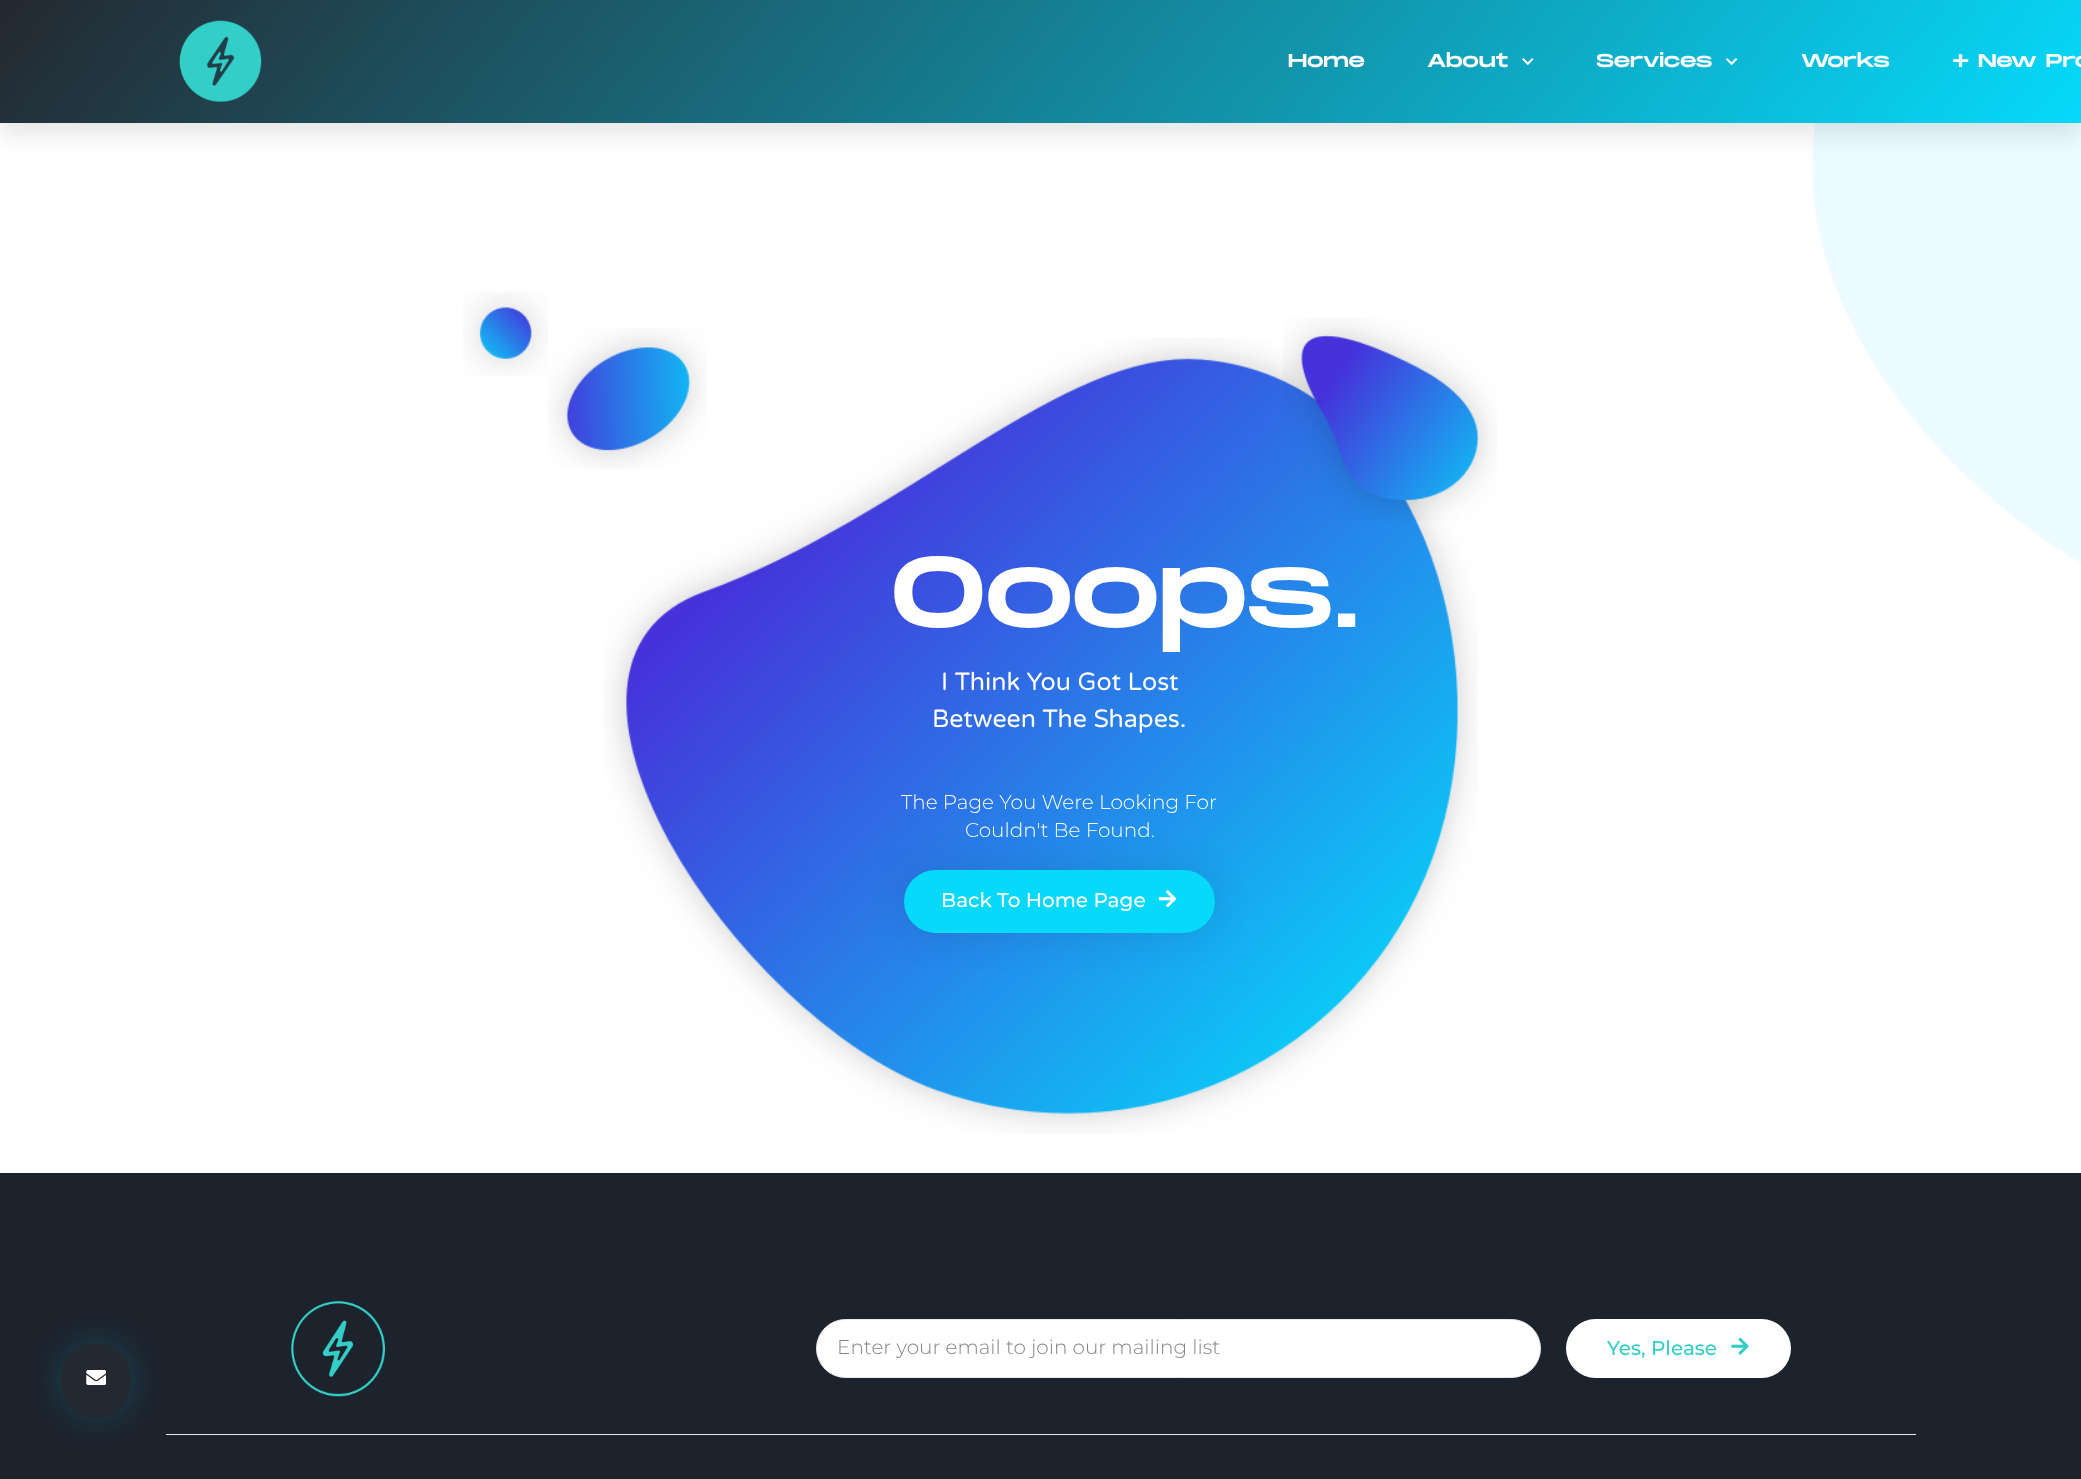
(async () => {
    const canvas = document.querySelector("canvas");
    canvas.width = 2081;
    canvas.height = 1479;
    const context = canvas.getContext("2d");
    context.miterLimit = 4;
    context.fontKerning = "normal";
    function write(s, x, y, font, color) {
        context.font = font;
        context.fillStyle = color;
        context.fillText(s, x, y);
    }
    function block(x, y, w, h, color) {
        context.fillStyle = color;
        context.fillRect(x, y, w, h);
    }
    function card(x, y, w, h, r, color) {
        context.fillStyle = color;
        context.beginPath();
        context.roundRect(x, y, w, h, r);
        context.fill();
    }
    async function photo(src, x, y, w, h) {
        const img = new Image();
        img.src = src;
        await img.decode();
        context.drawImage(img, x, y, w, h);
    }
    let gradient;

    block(0, 0, 2081, 1479, "rgb(255, 255, 255)");
    await photo("media/4.png", 1811, 123, 270, 440);
    context.fillStyle = "rgba(0, 0, 0, 0.1)";
    context.filter = "blur(12.5px)";
    context.beginPath();
    context.rect(0, 13, 2081, 122);
    context.fill();
    context.filter = "none";
    gradient = context.createLinearGradient(400, -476, 1681, 599);
    gradient.addColorStop(0, "rgb(36, 40, 48)");
    gradient.addColorStop(1, "rgb(6, 217, 250)");
    context.fillStyle = gradient;
    context.fillRect(0, 0, 2081, 123);
    await photo("media/1.png", 179, 20, 83, 82);
    write("Home", 1288, 67, "18.75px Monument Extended", "rgb(255, 254, 254)");
    write("About", 1427, 67, "18.75px Monument Extended", "rgb(255, 254, 254)");
    await photo("media/2.png", 1522, 58, 12, 7);
    write("Services", 1596, 67, "18.75px Monument Extended", "rgb(255, 254, 254)");
    await photo("media/3.png", 1726, 58, 12, 7);
    write("Works", 1801, 67, "18.75px Monument Extended", "rgb(255, 254, 254)");
    write("+ New Pro", 1952, 67, "18.75px Monument Extended", "rgb(255, 254, 254)");
    await photo("media/5.png", 463, 291, 85, 85);
    await photo("media/8.png", 604, 338, 874, 796);
    await photo("media/6.png", 548, 328, 159, 141);
    await photo("media/7.png", 1283, 317, 214, 204);
    write("Ooops.", 891, 627, "100px Monument Extended", "rgb(255, 254, 254)");
    write("I Think You Got Lost", 941, 690, "25px Varela Round", "rgb(255, 254, 254)");
    write("Between The Shapes.", 932, 727, "25px Varela Round", "rgb(255, 254, 254)");
    write("The Page You Were Looking For", 901, 809, "300 20px Montserrat", "rgb(255, 254, 254)");
    write("Couldn't Be Found.", 965, 837, "300 20px Montserrat", "rgb(255, 254, 254)");
    context.fillStyle = "rgba(0, 0, 0, 0.1)";
    context.filter = "blur(19px)";
    context.beginPath();
    context.roundRect(904, 870, 311, 63, 31.5);
    context.fill();
    context.filter = "none";
    card(904, 870, 311, 63, 31.5, "rgb(6, 217, 250)");
    write("Back To Home Page", 941, 907, "500 20px Montserrat", "rgb(255, 254, 254)");
    await photo("media/9.png", 1158, 890, 19, 18);
    block(0, 1173, 2081, 306, "rgb(29, 35, 45)");
    block(166, 1434, 1750, 1, "rgb(233, 233, 233)");
    context.fillStyle = "rgba(6, 217, 250, 0.24)";
    context.filter = "blur(17px)";
    context.beginPath();
    context.roundRect(65, 1346, 63, 68, 31.5);
    context.fill();
    context.filter = "none";
    card(61, 1343, 70, 75, 35, "rgb(36, 40, 48)");
    await photo("media/10.png", 86, 1370, 20, 15);
    await photo("media/11.png", 291, 1301, 94, 96);
    context.fillStyle = "rgb(255, 255, 255)";
    context.beginPath();
    context.roundRect(816.5, 1319.5, 724, 58, 29);
    context.fill();
    context.strokeStyle = "rgb(233, 233, 233)";
    context.stroke();
    write("Enter your email to join our mailing list", 837, 1354, "300 20px Montserrat", "rgb(134, 134, 134)");
    card(1566, 1319, 225, 59, 29.5, "rgb(255, 255, 255)");
    write("Yes, Please", 1607, 1355, "500 20px Montserrat", "rgb(53, 206, 198)");
    await photo("media/12.png", 1731, 1337, 18, 18);
})();
